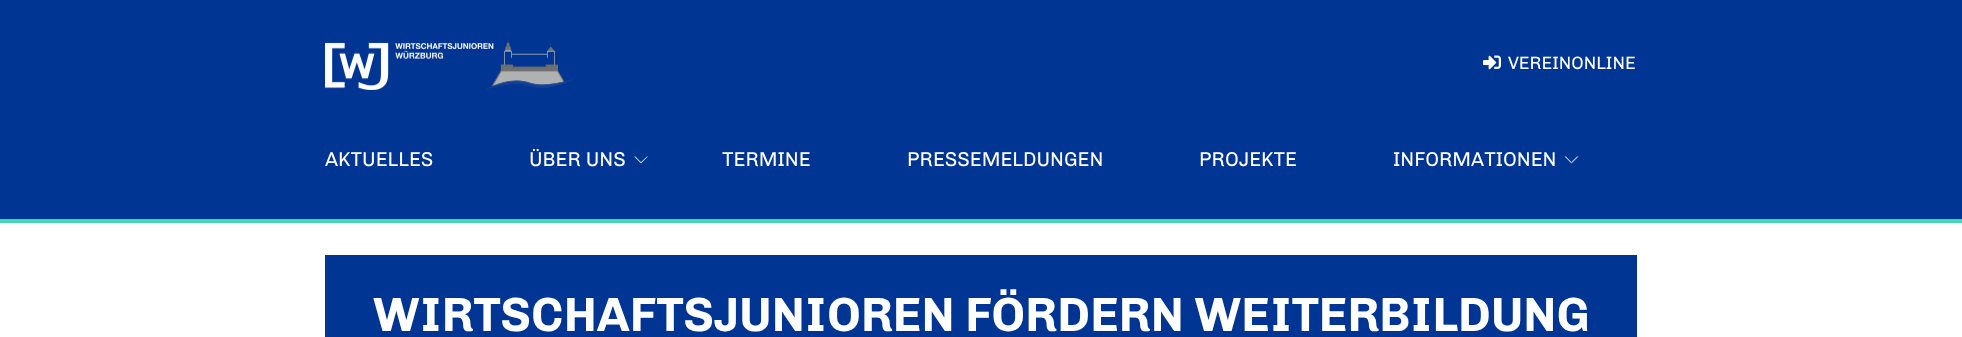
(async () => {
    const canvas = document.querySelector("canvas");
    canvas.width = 1962;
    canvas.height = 337;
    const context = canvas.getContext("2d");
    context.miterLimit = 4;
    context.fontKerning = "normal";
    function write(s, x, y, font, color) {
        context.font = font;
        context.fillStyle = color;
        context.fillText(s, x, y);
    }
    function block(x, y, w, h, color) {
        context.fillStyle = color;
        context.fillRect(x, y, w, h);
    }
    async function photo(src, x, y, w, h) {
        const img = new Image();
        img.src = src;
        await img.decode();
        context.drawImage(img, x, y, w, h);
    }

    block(0, 0, 1962, 337, "rgb(255, 255, 255)");
    block(0, 0, 1962, 219, "rgb(0, 53, 148)");
    await photo("media/1.png", 325, 40, 248, 50);
    await photo("media/2.png", 1483, 55, 18, 15);
    write("VEREINONLINE", 1508, 69, "18px Chivo", "rgb(255, 255, 255)");
    write("AKTUELLES", 325, 166, "20px Chivo", "rgb(255, 255, 255)");
    write("ÜBER UNS", 529, 166, "20px Chivo", "rgb(255, 255, 255)");
    context.fillStyle = "rgb(191, 205, 228)";
    context.beginPath();
    context.moveTo(648, 156.5);
    context.lineTo(641, 163.5);
    context.lineTo(641, 162);
    context.lineTo(647, 156.5);
    context.closePath();
    context.moveTo(641, 163.5);
    context.lineTo(634, 156.5);
    context.lineTo(635.5, 156.5);
    context.lineTo(641, 162);
    context.closePath();
    context.fill();
    write("TERMINE", 722, 166, "20px Chivo", "rgb(255, 255, 255)");
    write("PRESSEMELDUNGEN", 907, 166, "20px Chivo", "rgb(255, 255, 255)");
    write("PROJEKTE", 1199, 166, "20px Chivo", "rgb(255, 255, 255)");
    write("INFORMATIONEN", 1393, 166, "20px Chivo", "rgb(255, 255, 255)");
    context.fillStyle = "rgb(191, 205, 228)";
    context.beginPath();
    context.moveTo(1578.5, 156.5);
    context.lineTo(1571.5, 163.5);
    context.lineTo(1571.5, 162);
    context.lineTo(1577, 156.5);
    context.closePath();
    context.fill();
    context.beginPath();
    context.moveTo(1571.5, 163.5);
    context.lineTo(1564.5, 156.5);
    context.lineTo(1566, 156.5);
    context.lineTo(1571.5, 162);
    context.closePath();
    context.fill();
    block(0, 219, 1962, 4, "rgb(71, 215, 172)");
    block(325, 255, 1312, 82, "rgb(0, 53, 148)");
    write("WIRTSCHAFTSJUNIOREN FÖRDERN WEITERBILDUNG", 373, 331, "bold 48px Chivo", "rgb(255, 255, 255)");
})();
